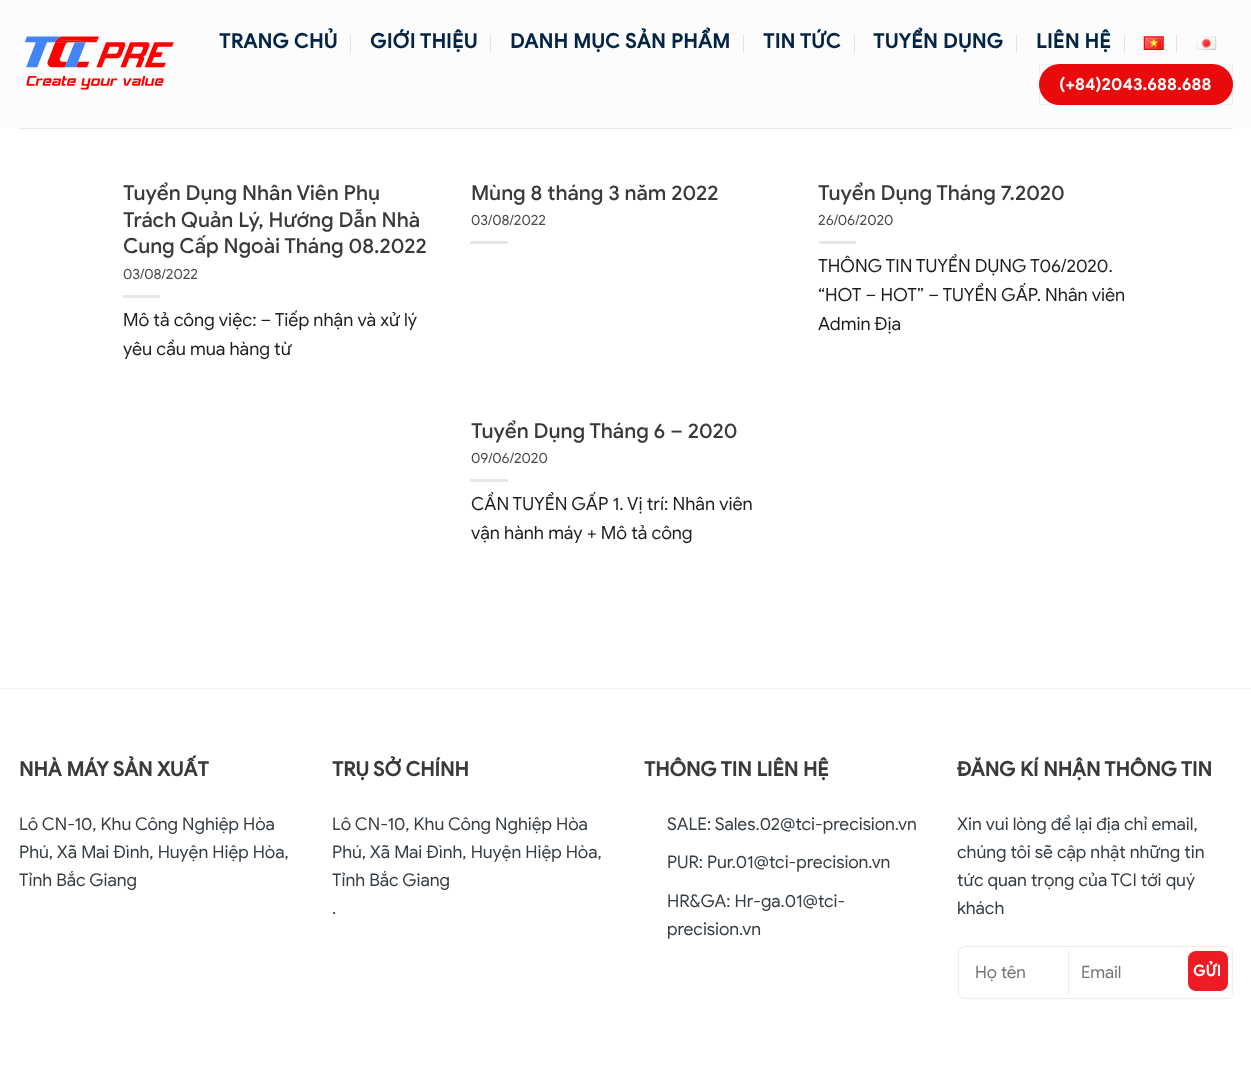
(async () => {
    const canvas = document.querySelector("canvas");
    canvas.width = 1251;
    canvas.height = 1068;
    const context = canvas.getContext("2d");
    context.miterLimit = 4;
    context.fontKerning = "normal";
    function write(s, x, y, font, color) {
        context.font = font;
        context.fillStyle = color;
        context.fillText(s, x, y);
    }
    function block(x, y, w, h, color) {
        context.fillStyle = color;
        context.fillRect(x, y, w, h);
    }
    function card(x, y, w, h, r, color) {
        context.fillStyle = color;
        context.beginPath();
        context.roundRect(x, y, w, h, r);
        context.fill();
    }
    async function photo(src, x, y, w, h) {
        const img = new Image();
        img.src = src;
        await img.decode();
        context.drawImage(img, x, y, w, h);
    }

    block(0, 0, 1251, 1068, "rgb(255, 255, 255)");
    block(0, 0, 1251, 128, "rgb(252, 252, 252)");
    await photo("media/1.png", 24, 36, 150, 54);
    context.letterSpacing = "0.4px";
    write("TRANG CHỦ", 219, 48, "bold 20px Google Sans", "rgb(2, 37, 69)");
    block(350, 34, 1, 19, "rgb(227, 227, 227)");
    write("GIỚI THIỆU", 370, 48, "bold 20px Google Sans", "rgb(2, 37, 69)");
    block(490, 34, 1, 19, "rgb(227, 227, 227)");
    write("DANH MỤC SẢN PHẨM", 510, 48, "bold 20px Google Sans", "rgb(2, 37, 69)");
    block(743, 34, 1, 19, "rgb(227, 227, 227)");
    write("TIN TỨC", 763, 48, "bold 20px Google Sans", "rgb(2, 37, 69)");
    block(854, 34, 1, 19, "rgb(227, 227, 227)");
    write("TUYỂN DỤNG", 873, 48, "bold 20px Google Sans", "rgb(2, 37, 69)");
    block(1016, 34, 1, 19, "rgb(227, 227, 227)");
    write("LIÊN HỆ", 1036, 48, "bold 20px Google Sans", "rgb(2, 37, 69)");
    block(1124, 34, 1, 19, "rgb(227, 227, 227)");
    await photo("media/2.png", 1143, 36, 21, 14);
    block(1176, 34, 1, 19, "rgb(227, 227, 227)");
    await photo("media/3.png", 1196, 36, 21, 14);
    card(1039, 64, 194, 41, 20.5, "rgb(233, 11, 11)");
    context.strokeStyle = "rgba(0, 0, 0, 0.05)";
    context.strokeRect(1039.5, 64.5, 193, 40);
    context.letterSpacing = "0.5px";
    write("(+84)2043.688.688", 1059, 90, "bold 16.5px Google Sans", "rgb(255, 255, 255)");
    block(19, 128, 1214, 1, "rgb(233, 233, 233)");
    context.letterSpacing = "0px";
    write("Tuyển Dụng Nhân Viên Phụ", 123, 200, "500 20.75px Google Sans", "rgb(58, 58, 58)");
    write("Trách Quản Lý, Hướng Dẫn Nhà", 123, 227, "500 20.75px Google Sans", "rgb(58, 58, 58)");
    write("Cung Cấp Ngoài Tháng 08.2022", 123, 253, "500 20.75px Google Sans", "rgb(58, 58, 58)");
    write("03/08/2022", 123, 279, "14.5px Google Sans", "rgb(75, 75, 75)");
    block(123, 295, 37, 3, "rgb(230, 230, 230)");
    write("Mô tả công việc: – Tiếp nhận và xử lý", 123, 326, "18px Google Sans", "rgb(30, 30, 30)");
    write("yêu cầu mua hàng từ", 123, 355, "18px Google Sans", "rgb(30, 30, 30)");
    write("Mùng 8 tháng 3 năm 2022", 471, 200, "500 20.75px Google Sans", "rgb(58, 58, 58)");
    write("03/08/2022", 471, 225, "14.5px Google Sans", "rgb(75, 75, 75)");
    block(470, 241, 38, 3, "rgb(230, 230, 230)");
    write("Tuyển Dụng Tháng 7.2020", 818, 200, "500 20.75px Google Sans", "rgb(58, 58, 58)");
    write("26/06/2020", 818, 225, "14.5px Google Sans", "rgb(75, 75, 75)");
    block(819, 241, 37, 3, "rgb(230, 230, 230)");
    write("THÔNG TIN TUYỂN DỤNG T06/2020.", 818, 272, "18px Google Sans", "rgb(30, 30, 30)");
    write("“HOT – HOT” – TUYỂN GẤP. Nhân viên", 818, 301, "18px Google Sans", "rgb(30, 30, 30)");
    write("Admin Địa", 818, 330, "18px Google Sans", "rgb(30, 30, 30)");
    write("Tuyển Dụng Tháng 6 – 2020", 471, 438, "500 20.75px Google Sans", "rgb(58, 58, 58)");
    write("09/06/2020", 471, 463, "14.5px Google Sans", "rgb(75, 75, 75)");
    block(470, 479, 38, 3, "rgb(230, 230, 230)");
    write("CẦN TUYỂN GẤP 1. Vị trí: Nhân viên", 471, 510, "18px Google Sans", "rgb(30, 30, 30)");
    write("vận hành máy + Mô tả công", 471, 539, "18px Google Sans", "rgb(30, 30, 30)");
    block(0, 688, 1251, 1, "rgb(242, 242, 242)");
    write("NHÀ MÁY SẢN XUẤT", 19, 776, "bold 20px Google Sans", "rgb(58, 58, 58)");
    write("Lô CN-10, Khu Công Nghiệp Hòa", 19, 830, "17.5px Google Sans", "rgb(55, 62, 67)");
    write("Phú, Xã Mai Đình, Huyện Hiệp Hòa,", 19, 858, "17.5px Google Sans", "rgb(55, 62, 67)");
    write("Tỉnh Bắc Giang", 19, 886, "17.5px Google Sans", "rgb(55, 62, 67)");
    write("TRỤ SỞ CHÍNH", 332, 776, "bold 20px Google Sans", "rgb(58, 58, 58)");
    write("Lô CN-10, Khu Công Nghiệp Hòa", 332, 830, "17.5px Google Sans", "rgb(55, 62, 67)");
    write("Phú, Xã Mai Đình, Huyện Hiệp Hòa,", 332, 858, "17.5px Google Sans", "rgb(55, 62, 67)");
    write("Tỉnh Bắc Giang", 332, 886, "17.5px Google Sans", "rgb(55, 62, 67)");
    write(".", 332, 914, "17.5px Google Sans", "rgb(55, 62, 67)");
    write("THÔNG TIN LIÊN HỆ", 644, 776, "bold 20px Google Sans", "rgb(58, 58, 58)");
    write("SALE: Sales.02@tci-precision.vn", 667, 830, "17.5px Google Sans", "rgb(55, 62, 67)");
    write("PUR: Pur.01@tci-precision.vn", 667, 868, "17.5px Google Sans", "rgb(55, 62, 67)");
    write("HR&GA: Hr-ga.01@tci-", 667, 907, "17.5px Google Sans", "rgb(55, 62, 67)");
    write("precision.vn", 667, 935, "17.5px Google Sans", "rgb(55, 62, 67)");
    write("ĐĂNG KÍ NHẬN THÔNG TIN", 957, 776, "bold 20px Google Sans", "rgb(58, 58, 58)");
    write("Xin vui lòng để lại địa chỉ email,", 957, 830, "17.5px Google Sans", "rgb(55, 62, 67)");
    write("chúng tôi sẽ cập nhật những tin", 957, 858, "17.5px Google Sans", "rgb(55, 62, 67)");
    write("tức quan trọng của TCI tới quý", 957, 886, "17.5px Google Sans", "rgb(55, 62, 67)");
    write("khách", 957, 914, "17.5px Google Sans", "rgb(55, 62, 67)");
    context.beginPath();
    context.roundRect(958.5, 946.5, 274, 52, 5.5);
    context.strokeStyle = "rgb(232, 239, 241)";
    context.stroke();
    block(1068, 951, 1, 43, "rgb(232, 239, 241)");
    write("Họ tên", 975, 978, "17px Google Sans", "rgb(117, 117, 117)");
    write("Email", 1081, 978, "17px Google Sans", "rgb(117, 117, 117)");
    card(1188, 951, 40, 40, 8, "rgb(237, 28, 36)");
    context.letterSpacing = "0.5px";
    write("GỬI", 1193, 976, "bold 15px Google Sans", "rgb(255, 255, 255)");
})();
